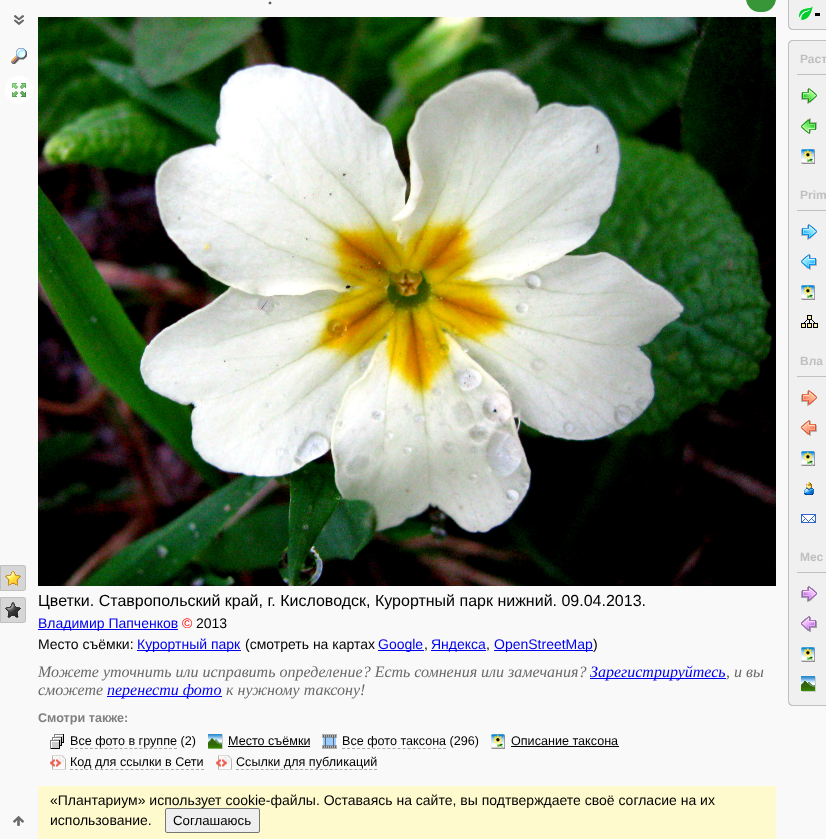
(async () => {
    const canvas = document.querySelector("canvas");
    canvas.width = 826;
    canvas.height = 839;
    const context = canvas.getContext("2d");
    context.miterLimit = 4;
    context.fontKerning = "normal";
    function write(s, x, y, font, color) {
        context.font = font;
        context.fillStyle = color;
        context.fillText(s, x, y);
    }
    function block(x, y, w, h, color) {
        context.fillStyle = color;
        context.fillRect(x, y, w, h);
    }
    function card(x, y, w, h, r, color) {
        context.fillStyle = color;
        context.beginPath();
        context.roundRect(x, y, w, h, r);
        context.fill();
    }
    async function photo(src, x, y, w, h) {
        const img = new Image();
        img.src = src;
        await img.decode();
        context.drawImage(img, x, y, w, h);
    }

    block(0, 0, 826, 839, "rgb(249, 249, 249)");
    write(".", 267, 4, "24px Liberation Serif", "rgb(96, 96, 96)");
    card(746, -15, 30, 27, 15, "rgba(34, 139, 34, 0.9)");
    await photo("media/1.png", 14, 15, 10, 10);
    await photo("media/2.png", 11, 48, 16, 16);
    context.fillStyle = "rgb(255, 255, 255)";
    context.beginPath();
    context.arc(19, 90, 14, 0, Math.PI * 2);
    context.fill();
    await photo("media/3.png", 12, 83, 14, 14);
    context.fillStyle = "rgb(214, 214, 214)";
    context.beginPath();
    context.roundRect(0, 565, 26, 26, [0, 3, 3, 0]);
    context.fill();
    await photo("media/4.png", 5, 571, 16, 15);
    context.beginPath();
    context.roundRect(0.5, 565.5, 25, 25, [0, 2.5, 2.5, 0]);
    context.strokeStyle = "rgb(192, 192, 192)";
    context.stroke();
    context.beginPath();
    context.roundRect(0, 597, 26, 26, [0, 3, 3, 0]);
    context.fill();
    await photo("media/5.png", 5, 602, 16, 16);
    context.beginPath();
    context.roundRect(0.5, 597.5, 25, 25, [0, 2.5, 2.5, 0]);
    context.stroke();
    context.fillStyle = "rgb(240, 240, 240)";
    context.beginPath();
    context.roundRect(788, 0, 38, 30, [0, 0, 0, 5]);
    context.fill();
    await photo("media/6.png", 799, 6, 14, 14);
    context.fillStyle = "rgb(192, 192, 192)";
    context.beginPath();
    context.moveTo(788, 0);
    context.lineTo(826, 0);
    context.lineTo(826, 30);
    context.lineTo(793, 30);
    context.bezierCurveTo(790, 30, 788, 28, 788, 25);
    context.closePath();
    context.moveTo(789, 0);
    context.lineTo(826, 0);
    context.lineTo(826, 29);
    context.lineTo(793, 29);
    context.bezierCurveTo(791, 29, 789, 27, 789, 25);
    context.closePath();
    context.fill("evenodd");
    block(815, 13, 5, 3, "rgb(0, 0, 0)");
    context.fillStyle = "rgb(240, 240, 240)";
    context.beginPath();
    context.moveTo(793, 40);
    context.lineTo(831, 40);
    context.lineTo(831, 706);
    context.lineTo(793, 706);
    context.bezierCurveTo(790, 706, 788, 704, 788, 701);
    context.lineTo(788, 45);
    context.bezierCurveTo(788, 42, 790, 40, 793, 40);
    context.closePath();
    context.fill();
    context.fillStyle = "rgb(192, 192, 192)";
    context.beginPath();
    context.moveTo(793, 40);
    context.lineTo(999, 40);
    context.lineTo(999, 706);
    context.lineTo(793, 706);
    context.bezierCurveTo(790, 706, 788, 704, 788, 701);
    context.lineTo(788, 45);
    context.bezierCurveTo(788, 42, 790, 40, 793, 40);
    context.closePath();
    context.moveTo(793, 41);
    context.lineTo(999, 41);
    context.lineTo(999, 705);
    context.lineTo(793, 705);
    context.bezierCurveTo(791, 705, 789, 703, 789, 701);
    context.lineTo(789, 45);
    context.bezierCurveTo(789, 43, 791, 41, 793, 41);
    context.closePath();
    context.fill("evenodd");
    block(797, 74, 29, 1, "rgb(192, 192, 192)");
    write("Раст", 800, 63, "bold 12px Liberation Sans", "rgb(192, 192, 192)");
    await photo("media/7.png", 801, 88, 16, 16);
    await photo("media/8.png", 801, 118, 16, 16);
    await photo("media/9.png", 801, 149, 14, 15);
    block(797, 210, 29, 1, "rgb(192, 192, 192)");
    write("Prim", 800, 199, "bold 12px Liberation Sans", "rgb(192, 192, 192)");
    await photo("media/10.png", 801, 224, 16, 16);
    await photo("media/11.png", 801, 254, 16, 16);
    await photo("media/9.png", 801, 285, 14, 15);
    await photo("media/12.png", 801, 315, 17, 13);
    block(797, 376, 29, 1, "rgb(192, 192, 192)");
    write("Вла", 800, 365, "bold 12px Liberation Sans", "rgb(192, 192, 192)");
    await photo("media/13.png", 801, 390, 16, 16);
    await photo("media/14.png", 801, 420, 16, 16);
    await photo("media/9.png", 801, 451, 14, 15);
    await photo("media/15.png", 804, 482, 10, 13);
    await photo("media/16.png", 801, 514, 15, 9);
    block(797, 572, 29, 1, "rgb(192, 192, 192)");
    write("Мес", 800, 561, "bold 12px Liberation Sans", "rgb(192, 192, 192)");
    await photo("media/17.png", 801, 586, 16, 16);
    await photo("media/18.png", 801, 616, 16, 16);
    await photo("media/9.png", 801, 647, 14, 15);
    await photo("media/19.png", 801, 676, 15, 16);
    await photo("media/20.png", 38, 17, 738, 569);
    write("Цветки. Ставропольский край, г. Кисловодск, Курортный парк нижний. 09.04.2013.", 38, 606, "16px Liberation Sans", "rgb(0, 0, 0)");
    block(38, 629, 140, 1, "rgb(0, 0, 238)");
    write("Владимир Папченков", 38, 628, "14px Liberation Sans", "rgb(0, 0, 238)");
    write("©", 182, 628, "14px Liberation Sans", "rgb(255, 0, 0)");
    write("2013", 196, 628, "14px Liberation Sans", "rgb(0, 0, 0)");
    write("Место съёмки:", 38, 649, "14px Liberation Sans", "rgb(0, 0, 0)");
    block(137, 650, 104, 1, "rgb(0, 0, 238)");
    write("Курортный парк", 137, 649, "14px Liberation Sans", "rgb(0, 0, 238)");
    write("(смотреть на картах", 245, 649, "14px Liberation Sans", "rgb(0, 0, 0)");
    block(378, 650, 46, 1, "rgb(0, 0, 238)");
    write("Google", 378, 649, "14px Liberation Sans", "rgb(0, 0, 238)");
    write(",", 424, 649, "14px Liberation Sans", "rgb(0, 0, 0)");
    block(431, 650, 55, 1, "rgb(0, 0, 238)");
    write("Яндекса", 431, 649, "14px Liberation Sans", "rgb(0, 0, 238)");
    write(",", 486, 649, "14px Liberation Sans", "rgb(0, 0, 0)");
    block(494, 650, 99, 1, "rgb(0, 0, 238)");
    write("OpenStreetMap", 494, 649, "14px Liberation Sans", "rgb(0, 0, 238)");
    write(")", 593, 649, "14px Liberation Sans", "rgb(0, 0, 0)");
    write("Можете уточнить или исправить определение? Есть сомнения или замечания?", 38, 677, "italic 16px Liberation Serif", "rgb(105, 105, 105)");
    block(590, 678, 136, 1, "rgb(0, 0, 238)");
    write("Зарегистрируйтесь", 590, 677, "italic 16px Liberation Serif", "rgb(0, 0, 238)");
    write(", и вы", 726, 677, "italic 16px Liberation Serif", "rgb(105, 105, 105)");
    write("сможете", 38, 695, "italic 16px Liberation Serif", "rgb(105, 105, 105)");
    block(107, 696, 115, 1, "rgb(0, 0, 238)");
    write("перенести фото", 107, 695, "italic 16px Liberation Serif", "rgb(0, 0, 238)");
    write("к нужному таксону!", 226, 695, "italic 16px Liberation Serif", "rgb(105, 105, 105)");
    write("Смотри также:", 38, 722, "bold 12.6px Liberation Sans", "rgb(128, 128, 128)");
    await photo("media/21.png", 50, 734, 14, 15);
    write("Все фото в группе (2)", 70, 745, "12.6px Liberation Sans", "rgb(0, 0, 0)");
    context.beginPath();
    context.moveTo(70, 748.5);
    context.lineTo(177, 748.5);
    context.strokeStyle = "rgb(169, 169, 169)";
    context.setLineDash([3, 1.95]);
    context.stroke();
    await photo("media/22.png", 208, 734, 15, 15);
    write("Место съёмки", 228, 745, "12.6px Liberation Sans", "rgb(0, 0, 0)");
    block(228, 746, 82, 1, "rgb(0, 0, 0)");
    await photo("media/23.png", 322, 734, 15, 15);
    write("Все фото таксона (296)", 342, 745, "12.6px Liberation Sans", "rgb(0, 0, 0)");
    context.beginPath();
    context.moveTo(342, 748.5);
    context.lineTo(446, 748.5);
    context.setLineDash([3, 2.05]);
    context.stroke();
    await photo("media/9.png", 491, 734, 14, 15);
    write("Описание таксона", 511, 745, "12.6px Liberation Sans", "rgb(0, 0, 0)");
    block(511, 746, 108, 1, "rgb(0, 0, 0)");
    await photo("media/24.png", 50, 755, 16, 15);
    write("Код для ссылки в Сети", 70, 766, "12.6px Liberation Sans", "rgb(0, 0, 0)");
    context.beginPath();
    context.moveTo(70, 769.5);
    context.lineTo(204, 769.5);
    context.setLineDash([3, 2.04]);
    context.stroke();
    await photo("media/24.png", 216, 755, 16, 15);
    write("Ссылки для публикаций", 236, 766, "12.6px Liberation Sans", "rgb(0, 0, 0)");
    context.beginPath();
    context.moveTo(236, 769.5);
    context.lineTo(377, 769.5);
    context.setLineDash([3, 1.93]);
    context.stroke();
    await photo("media/25.png", 13, 816, 11, 10);
    block(38, 786, 738, 53, "rgb(255, 250, 205)");
    write("«Плантариум» использует cookie-файлы. Оставаясь на сайте, вы подтверждаете своё согласие на их", 50, 805, "14px Liberation Sans", "rgb(0, 0, 0)");
    write("использование.", 50, 825, "14px Liberation Sans", "rgb(0, 0, 0)");
    context.fillStyle = "rgb(239, 239, 239)";
    context.beginPath();
    context.roundRect(165.5, 808.5, 94, 24, 1.5);
    context.fill();
    context.strokeStyle = "rgb(118, 118, 118)";
    context.setLineDash([]);
    context.stroke();
    write("Соглашаюсь", 173, 825, "13.25px Liberation Sans", "rgb(0, 0, 0)");
})();
